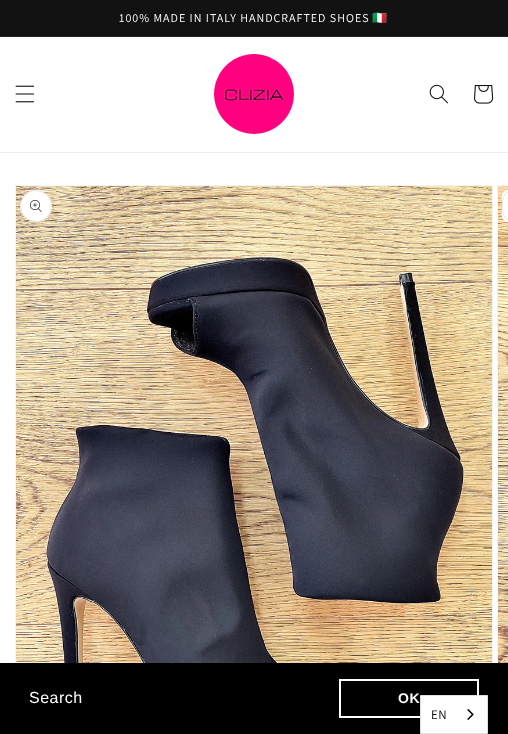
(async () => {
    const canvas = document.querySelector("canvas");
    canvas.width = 508;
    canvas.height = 734;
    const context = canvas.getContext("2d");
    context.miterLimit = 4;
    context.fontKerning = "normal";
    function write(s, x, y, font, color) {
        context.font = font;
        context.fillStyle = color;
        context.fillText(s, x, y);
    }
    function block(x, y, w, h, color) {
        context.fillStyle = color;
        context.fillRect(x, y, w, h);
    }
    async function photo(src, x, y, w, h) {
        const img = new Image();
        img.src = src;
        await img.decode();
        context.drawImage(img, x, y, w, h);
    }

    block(0, 0, 508, 734, "rgb(255, 255, 255)");
    block(0, 0, 508, 36, "rgb(18, 18, 18)");
    block(0, 36, 508, 1, "rgb(37, 37, 37)");
    context.letterSpacing = "1px";
    write("100% MADE IN ITALY HANDCRAFTED SHOES", 119, 22, "12px Assistant", "rgb(255, 255, 255)");
    write("🇮🇹", 372, 22, "12px Noto Color Emoji", "rgb(255, 255, 255)");
    block(0, 152, 508, 1, "rgb(236, 236, 236)");
    await photo("media/1.png", 15, 85, 20, 18);
    await photo("media/2.png", 214, 54, 80, 80);
    await photo("media/3.png", 429, 84, 19, 20);
    await photo("media/4.png", 474, 85, 20, 19);
    context.strokeStyle = "rgb(243, 243, 243)";
    context.strokeRect(15.5, 185.5, 477, 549);
    await photo("media/5.png", 16, 186, 476, 477);
    context.fillStyle = "rgb(255, 255, 255)";
    context.beginPath();
    context.arc(36, 206, 16, 0, Math.PI * 2);
    context.fill();
    context.beginPath();
    context.arc(36, 206, 15.5, 0, Math.PI * 2);
    context.strokeStyle = "rgba(18, 18, 18, 0.1)";
    context.stroke();
    await photo("media/6.png", 30, 200, 12, 12);
    context.strokeStyle = "rgb(243, 243, 243)";
    context.strokeRect(497.5, 185.5, 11, 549);
    await photo("media/7.png", 498, 186, 10, 477);
    context.beginPath();
    context.roundRect(502, 190, 6, 32, [16, 0, 0, 16]);
    context.fill();
    context.beginPath();
    context.roundRect(502.5, 190.5, 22, 31, 15.5);
    context.strokeStyle = "rgba(18, 18, 18, 0.1)";
    context.stroke();
    block(0, 663, 508, 71, "rgb(0, 0, 0)");
    context.letterSpacing = "0.5px";
    write("Search", 29, 703, "16px Liberation Sans", "rgb(255, 255, 255)");
    context.strokeStyle = "rgb(255, 255, 255)";
    context.lineWidth = 2;
    context.strokeRect(340, 680, 138, 37);
    write("OK", 398, 703, "bold 14px Liberation Sans", "rgb(255, 255, 255)");
    context.beginPath();
    context.rect(420.5, 695.5, 67, 38);
    context.fill();
    context.strokeStyle = "rgb(224, 224, 224)";
    context.lineWidth = 1;
    context.stroke();
    write("EN", 431, 719, "13px Assistant", "rgb(0, 0, 0)");
    await photo("media/8.png", 467, 709, 7, 11);
})();
